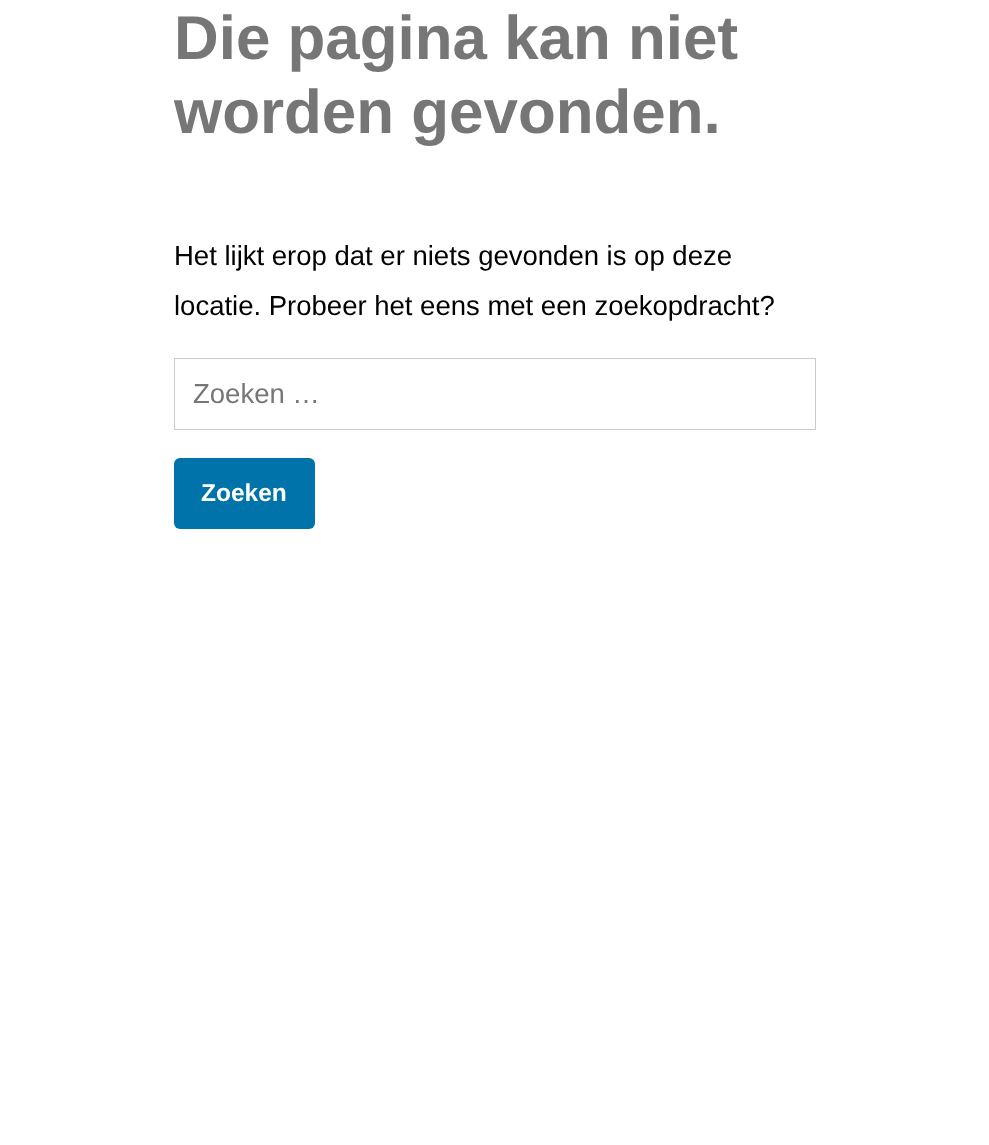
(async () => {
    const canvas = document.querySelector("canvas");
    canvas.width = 989;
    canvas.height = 1145;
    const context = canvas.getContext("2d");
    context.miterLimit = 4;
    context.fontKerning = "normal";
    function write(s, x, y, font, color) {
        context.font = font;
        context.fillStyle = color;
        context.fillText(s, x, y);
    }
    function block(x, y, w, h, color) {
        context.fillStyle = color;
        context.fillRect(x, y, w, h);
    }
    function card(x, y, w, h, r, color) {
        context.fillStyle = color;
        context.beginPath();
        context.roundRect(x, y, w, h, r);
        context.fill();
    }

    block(0, 0, 989, 1145, "rgb(255, 255, 255)");
    write("Die pagina kan niet", 174, 59, "bold 61.9px Liberation Sans", "rgb(118, 118, 118)");
    write("worden gevonden.", 174, 133, "bold 61.9px Liberation Sans", "rgb(118, 118, 118)");
    write("Het lijkt erop dat er niets gevonden is op deze", 174, 265, "27.5px Liberation Sans", "rgb(0, 0, 0)");
    write("locatie. Probeer het eens met een zoekopdracht?", 174, 315, "27.5px Liberation Sans", "rgb(0, 0, 0)");
    context.strokeStyle = "rgb(204, 204, 204)";
    context.strokeRect(174.5, 358.5, 641, 71);
    write("Zoeken …", 193, 403, "27.5px Liberation Sans", "rgb(118, 118, 118)");
    card(174, 458, 141, 71, 6, "rgb(0, 115, 170)");
    write("Zoeken", 201, 501, "bold 24.5px Liberation Sans", "rgb(255, 255, 255)");
})();
